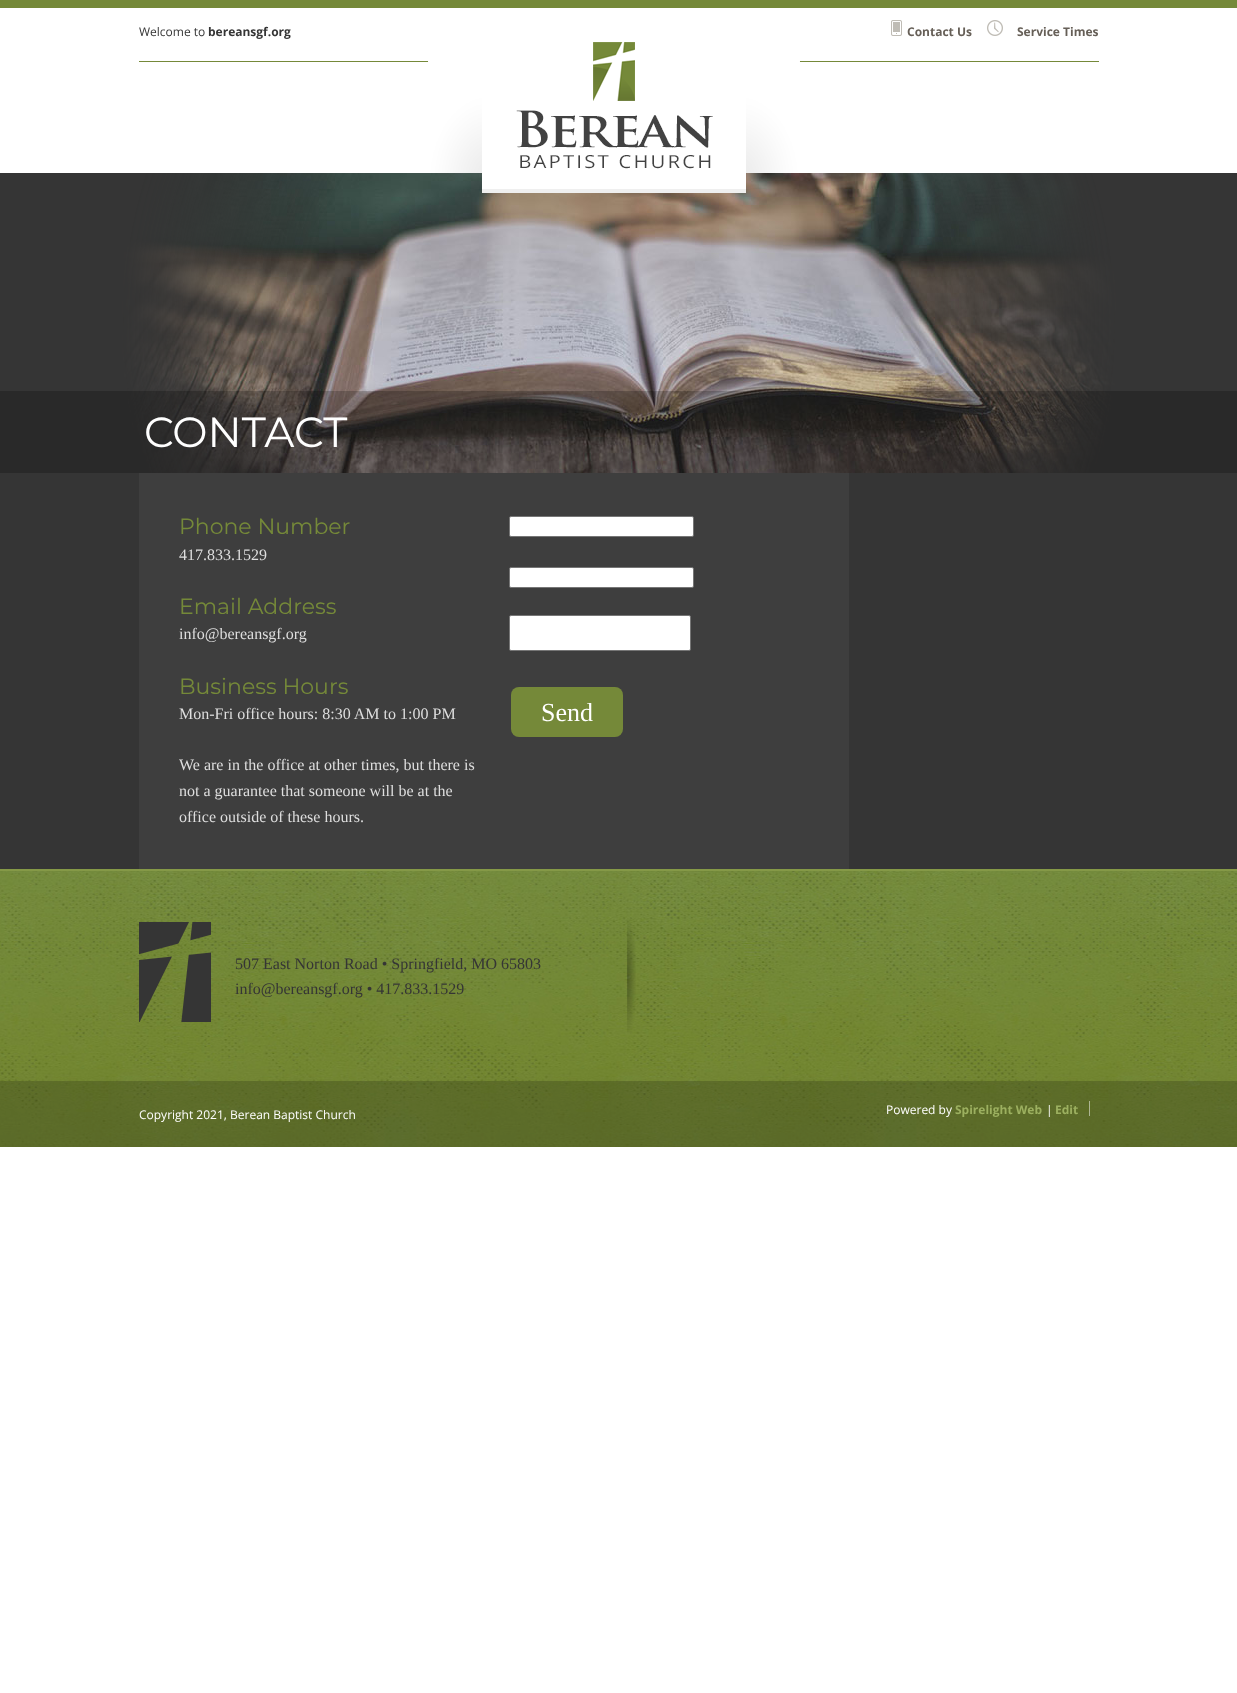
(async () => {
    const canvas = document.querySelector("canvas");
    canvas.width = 1237;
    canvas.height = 1693;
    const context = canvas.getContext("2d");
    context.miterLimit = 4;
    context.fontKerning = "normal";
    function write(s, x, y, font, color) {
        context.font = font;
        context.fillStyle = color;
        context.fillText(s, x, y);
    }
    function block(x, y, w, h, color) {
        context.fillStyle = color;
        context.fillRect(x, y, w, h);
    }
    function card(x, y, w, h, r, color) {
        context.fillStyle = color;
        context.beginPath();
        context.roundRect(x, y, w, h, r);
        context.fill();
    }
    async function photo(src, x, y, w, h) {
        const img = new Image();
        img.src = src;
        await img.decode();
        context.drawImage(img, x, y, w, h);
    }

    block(0, 0, 1237, 1693, "rgb(255, 255, 255)");
    block(0, 0, 1237, 8, "rgb(117, 137, 57)");
    write("Welcome to", 139, 36, "12px Open Sans", "rgb(53, 53, 53)");
    write("bereansgf.org", 208, 36, "bold 12px Open Sans", "rgb(53, 53, 53)");
    await photo("media/1.png", 891, 20, 11, 16);
    write("Contact Us", 907, 36, "bold 12px Open Sans", "rgb(102, 95, 87)");
    await photo("media/2.png", 987, 20, 16, 16);
    write("Service Times", 1017, 36, "bold 12px Open Sans", "rgb(102, 95, 87)");
    block(139, 61, 960, 1, "rgb(117, 137, 57)");
    block(0, 173, 1237, 696, "rgb(53, 53, 53)");
    await photo("media/4.png", 122, 173, 994, 300);
    await photo("media/5.png", 119, 173, 1000, 300);
    await photo("media/3.png", 428, 42, 372, 151);
    block(0, 391, 1237, 82, "rgba(0, 0, 0, 0.21)");
    write("CONTACT", 144, 447, "42px Montserrat", "rgb(255, 255, 255)");
    block(139, 473, 710, 396, "rgb(62, 62, 62)");
    write("Phone Number", 179, 534, "22px Montserrat", "rgb(117, 137, 57)");
    write("417.833.1529", 179, 560, "16px Liberation Serif", "rgb(222, 222, 222)");
    write("Email Address", 179, 614, "22px Montserrat", "rgb(117, 137, 57)");
    write("info@bereansgf.org", 179, 639, "16px Liberation Serif", "rgb(222, 222, 222)");
    write("Business Hours", 179, 694, "22px Montserrat", "rgb(117, 137, 57)");
    write("Mon-Fri office hours: 8:30 AM to 1:00 PM", 179, 719, "16px Liberation Serif", "rgb(222, 222, 222)");
    write("We are in the office at other times, but there is", 179, 770, "16px Liberation Serif", "rgb(222, 222, 222)");
    write("not a guarantee that someone will be at the", 179, 796, "16px Liberation Serif", "rgb(222, 222, 222)");
    write("office outside of these hours.", 179, 822, "16px Liberation Serif", "rgb(222, 222, 222)");
    context.fillStyle = "rgb(255, 255, 255)";
    context.beginPath();
    context.roundRect(509.5, 516.5, 184, 20, 1.5);
    context.fill();
    context.strokeStyle = "rgb(118, 118, 118)";
    context.stroke();
    context.beginPath();
    context.roundRect(509.5, 567.5, 184, 20, 1.5);
    context.fill();
    context.stroke();
    context.beginPath();
    context.roundRect(509.5, 615.5, 181, 35, 1.5);
    context.fill();
    context.stroke();
    card(511, 687, 112, 50, 8, "rgb(117, 137, 57)");
    write("Send", 541, 721, "26px Liberation Serif", "rgb(255, 255, 255)");
    await photo("media/6.png", 0, 871, 1237, 276);
    block(0, 869, 1237, 2, "rgb(133, 153, 71)");
    await photo("media/7.png", 139, 922, 72, 100);
    write("507 East Norton Road • Springfield, MO 65803", 235, 969, "16px Liberation Serif", "rgb(53, 53, 53)");
    write("info@bereansgf.org • 417.833.1529", 235, 994, "16px Liberation Serif", "rgb(53, 53, 53)");
    await photo("media/8.png", 627, 920, 9, 112);
    block(0, 1081, 1237, 66, "rgba(0, 0, 0, 0.18)");
    write("Copyright 2021, Berean Baptist Church", 139, 1119, "12px Open Sans", "rgb(255, 255, 255)");
    write("Powered by", 886, 1114, "12px Open Sans", "rgb(255, 255, 255)");
    write("Spirelight Web", 955, 1114, "bold 12px Open Sans", "rgb(156, 176, 96)");
    write("|", 1046, 1114, "12px Open Sans", "rgb(255, 255, 255)");
    write("Edit", 1055, 1114, "bold 12px Open Sans", "rgb(156, 176, 96)");
    block(1089, 1101, 1, 15, "rgb(173, 181, 147)");
})();
